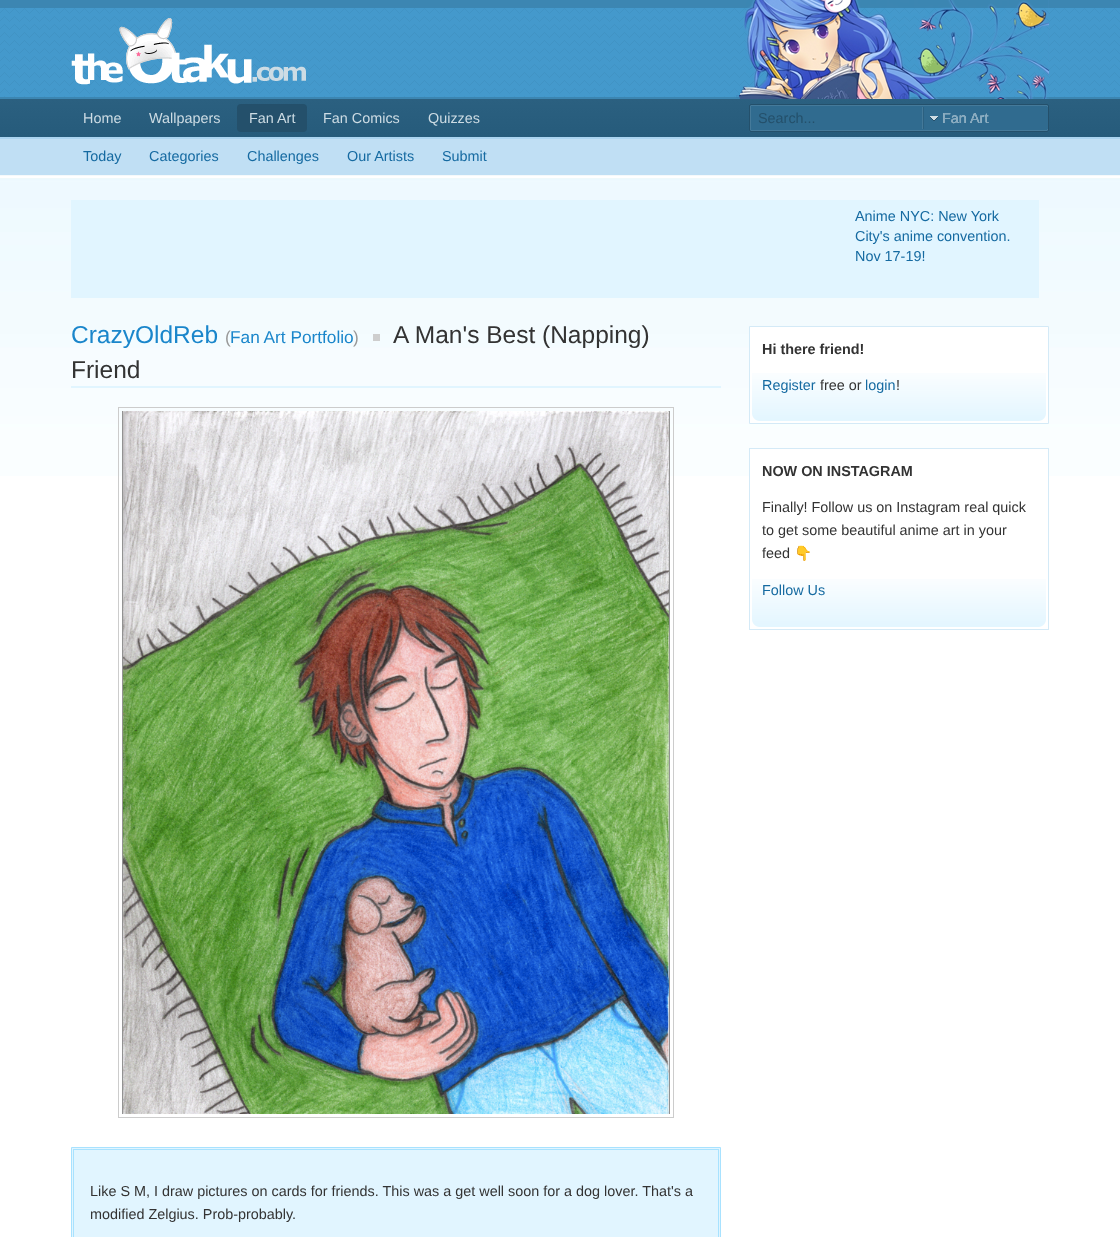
(async () => {
    const canvas = document.querySelector("canvas");
    canvas.width = 1120;
    canvas.height = 1237;
    const context = canvas.getContext("2d");
    context.miterLimit = 4;
    context.fontKerning = "normal";
    function write(s, x, y, font, color) {
        context.font = font;
        context.fillStyle = color;
        context.fillText(s, x, y);
    }
    function block(x, y, w, h, color) {
        context.fillStyle = color;
        context.fillRect(x, y, w, h);
    }
    function card(x, y, w, h, r, color) {
        context.fillStyle = color;
        context.beginPath();
        context.roundRect(x, y, w, h, r);
        context.fill();
    }
    async function photo(src, x, y, w, h) {
        const img = new Image();
        img.src = src;
        await img.decode();
        context.drawImage(img, x, y, w, h);
    }
    let gradient;

    block(0, 0, 1120, 1237, "rgb(255, 255, 255)");
    block(0, 8, 1120, 89, "rgb(68, 153, 204)");
    await photo("media/1.png", 0, 8, 1120, 89);
    block(0, 0, 1120, 8, "rgb(60, 134, 178)");
    await photo("media/2.png", 71, 18, 235, 67);
    block(0, 97, 1120, 2, "rgb(60, 134, 178)");
    await photo("media/3.png", 736, 0, 313, 99);
    gradient = context.createLinearGradient(560, 99, 560, 137);
    gradient.addColorStop(0, "rgb(43, 96, 128)");
    gradient.addColorStop(1, "rgb(38, 91, 123)");
    context.fillStyle = gradient;
    context.fillRect(0, 99, 1120, 38);
    write("Home", 83, 123, "14.4px Liberation Sans", "rgb(205, 220, 228)");
    write("Wallpapers", 149, 123, "14.4px Liberation Sans", "rgb(205, 220, 228)");
    card(237, 104, 70, 28, 4, "rgb(36, 80, 107)");
    write("Fan Art", 249, 123, "14.4px Liberation Sans", "rgb(205, 220, 228)");
    write("Fan Comics", 323, 123, "14.4px Liberation Sans", "rgb(205, 220, 228)");
    write("Quizzes", 428, 123, "14.4px Liberation Sans", "rgb(205, 220, 228)");
    card(749, 104, 300, 28, 2, "rgb(48, 107, 143)");
    context.beginPath();
    context.roundRect(750.5, 105.5, 297, 25, 0.5);
    context.strokeStyle = "rgb(69, 122, 154)";
    context.stroke();
    context.beginPath();
    context.roundRect(749.5, 104.5, 299, 27, 1.5);
    context.strokeStyle = "rgb(36, 80, 107)";
    context.stroke();
    block(922, 107, 1, 22, "rgb(68, 121, 153)");
    write("Search...", 758, 123, "14.4px Liberation Sans", "rgb(36, 80, 107)");
    block(923, 107, 1, 22, "rgb(43, 96, 128)");
    block(1047, 107, 1, 22, "rgb(48, 107, 143)");
    await photo("media/4.png", 930, 116, 8, 5);
    write("Fan Art", 942, 123, "14.4px Liberation Sans", "rgb(205, 220, 228)");
    write("Fan Art", 942, 123, "14.4px Liberation Sans", "rgb(133, 168, 189)");
    block(0, 139, 1120, 36, "rgb(192, 223, 244)");
    block(0, 137, 1120, 2, "rgb(170, 212, 240)");
    block(0, 175, 1120, 1, "rgb(244, 249, 251)");
    write("Today", 83, 161, "14.4px Liberation Sans", "rgb(21, 106, 161)");
    write("Categories", 149, 161, "14.4px Liberation Sans", "rgb(21, 106, 161)");
    write("Challenges", 247, 161, "14.4px Liberation Sans", "rgb(21, 106, 161)");
    write("Our Artists", 347, 161, "14.4px Liberation Sans", "rgb(21, 106, 161)");
    write("Submit", 442, 161, "14.4px Liberation Sans", "rgb(21, 106, 161)");
    await photo("media/5.png", 0, 178, 1120, 298);
    block(71, 200, 968, 98, "rgb(225, 245, 255)");
    write("Anime NYC: New York", 855, 221, "14.4px Liberation Sans", "rgb(21, 106, 161)");
    write("City's anime convention.", 855, 241, "14.4px Liberation Sans", "rgb(21, 106, 161)");
    write("Nov 17-19!", 855, 261, "14.4px Liberation Sans", "rgb(21, 106, 161)");
    block(71, 386, 650, 2, "rgb(225, 245, 255)");
    write("CrazyOldReb", 71, 343, "24.5px Liberation Sans", "rgb(26, 134, 203)");
    write("(", 225, 343, "17.25px Liberation Sans", "rgb(153, 153, 153)");
    write("Fan Art Portfolio", 230, 343, "17.25px Liberation Sans", "rgb(26, 134, 203)");
    write(")", 353, 343, "17.25px Liberation Sans", "rgb(153, 153, 153)");
    block(373, 334, 7, 7, "rgb(206, 206, 206)");
    write("A Man's Best (Napping)", 393, 343, "24.5px Liberation Sans", "rgb(51, 51, 51)");
    write("Friend", 71, 378, "24.5px Liberation Sans", "rgb(51, 51, 51)");
    context.strokeStyle = "rgb(204, 204, 204)";
    context.strokeRect(118.5, 407.5, 555, 710);
    await photo("media/6.png", 122, 411, 548, 703);
    context.fillStyle = "rgb(225, 245, 255)";
    context.beginPath();
    context.rect(71.5, 1147.5, 649, 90);
    context.fill();
    context.strokeStyle = "rgb(168, 226, 255)";
    context.stroke();
    context.strokeRect(73.5, 1149.5, 645, 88);
    write("Like S M, I draw pictures on cards for friends. This was a get well soon for a dog lover. That's a", 90, 1196, "14.4px Liberation Sans", "rgb(51, 51, 51)");
    write("modified Zelgius. Prob-probably.", 90, 1219, "14.4px Liberation Sans", "rgb(51, 51, 51)");
    context.fillStyle = "rgb(255, 255, 255)";
    context.beginPath();
    context.rect(749.5, 326.5, 299, 97);
    context.fill();
    context.strokeStyle = "rgb(212, 234, 247)";
    context.stroke();
    await photo("media/7.png", 752, 373, 294, 48);
    write("Hi there friend!", 762, 354, "bold 14.4px Liberation Sans", "rgb(51, 51, 51)");
    write("Register", 762, 390, "14.4px Liberation Sans", "rgb(21, 106, 161)");
    write("free or", 820, 390, "14.4px Liberation Sans", "rgb(51, 51, 51)");
    write("login", 865, 390, "14.4px Liberation Sans", "rgb(21, 106, 161)");
    write("!", 896, 390, "14.4px Liberation Sans", "rgb(51, 51, 51)");
    block(750, 449, 298, 27, "rgb(255, 255, 255)");
    context.strokeRect(749.5, 448.5, 299, 181);
    await photo("media/7.png", 752, 579, 294, 48);
    write("NOW ON INSTAGRAM", 762, 476, "bold 14.4px Liberation Sans", "rgb(51, 51, 51)");
    write("Finally! Follow us on Instagram real quick", 762, 512, "14.4px Liberation Sans", "rgb(51, 51, 51)");
    write("to get some beautiful anime art in your", 762, 535, "14.4px Liberation Sans", "rgb(51, 51, 51)");
    write("feed", 762, 558, "14.4px Liberation Sans", "rgb(51, 51, 51)");
    write("👇", 794, 558, "14.4px Noto Color Emoji", "rgb(51, 51, 51)");
    write("Follow Us", 762, 595, "14.4px Liberation Sans", "rgb(21, 106, 161)");
})();
